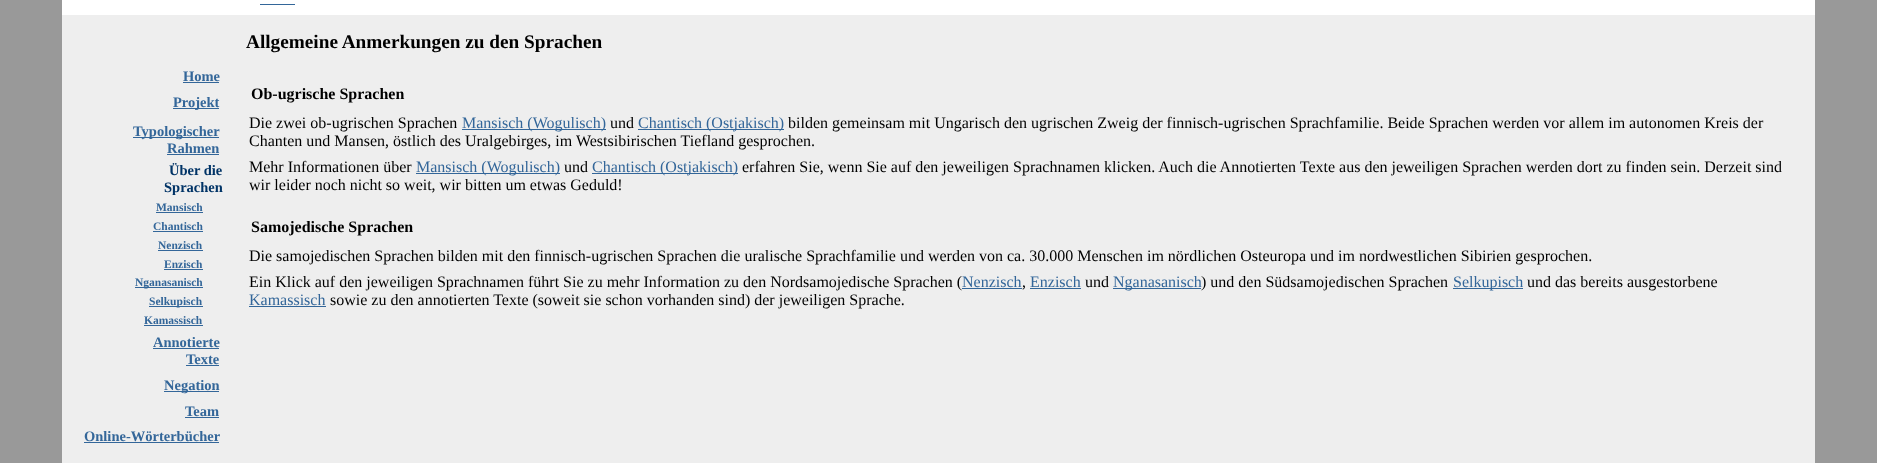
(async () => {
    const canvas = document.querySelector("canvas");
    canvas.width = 1877;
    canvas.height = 463;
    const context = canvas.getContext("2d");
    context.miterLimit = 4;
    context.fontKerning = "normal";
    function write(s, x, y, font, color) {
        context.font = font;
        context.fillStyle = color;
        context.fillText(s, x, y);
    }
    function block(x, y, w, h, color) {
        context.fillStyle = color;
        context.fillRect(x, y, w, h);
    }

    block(0, 0, 1877, 463, "rgb(153, 153, 153)");
    block(62, 15, 1753, 448, "rgb(238, 238, 238)");
    block(62, 0, 1753, 15, "rgb(255, 255, 255)");
    block(260, 4, 35, 1, "rgb(51, 102, 153)");
    write("Home", 183, 81, "bold 14.5px Liberation Serif", "rgb(51, 102, 153)");
    block(183, 82, 36, 1, "rgb(51, 102, 153)");
    block(173, 108, 46, 1, "rgb(51, 102, 153)");
    write("Projekt", 173, 107, "bold 14.5px Liberation Serif", "rgb(51, 102, 153)");
    block(133, 137, 86, 1, "rgb(51, 102, 153)");
    write("Typologischer", 133, 136, "bold 14.5px Liberation Serif", "rgb(51, 102, 153)");
    write("Rahmen", 167, 153, "bold 14.5px Liberation Serif", "rgb(51, 102, 153)");
    block(167, 154, 52, 1, "rgb(51, 102, 153)");
    write("Über die", 169, 175, "bold 14.5px Liberation Serif", "rgb(0, 51, 102)");
    write("Sprachen", 164, 192, "bold 14.5px Liberation Serif", "rgb(0, 51, 102)");
    write("Mansisch", 156, 211, "bold 11.5px Liberation Serif", "rgb(51, 102, 153)");
    block(156, 212, 47, 1, "rgb(51, 102, 153)");
    write("Chantisch", 153, 230, "bold 11.5px Liberation Serif", "rgb(51, 102, 153)");
    block(153, 231, 50, 1, "rgb(51, 102, 153)");
    write("Nenzisch", 158, 249, "bold 11.5px Liberation Serif", "rgb(51, 102, 153)");
    block(158, 250, 45, 1, "rgb(51, 102, 153)");
    write("Enzisch", 164, 268, "bold 11.5px Liberation Serif", "rgb(51, 102, 153)");
    block(164, 269, 39, 1, "rgb(51, 102, 153)");
    block(135, 287, 68, 1, "rgb(51, 102, 153)");
    write("Nganasanisch", 135, 286, "bold 11.5px Liberation Serif", "rgb(51, 102, 153)");
    block(149, 306, 54, 1, "rgb(51, 102, 153)");
    write("Selkupisch", 149, 305, "bold 11.5px Liberation Serif", "rgb(51, 102, 153)");
    write("Kamassisch", 144, 324, "bold 11.5px Liberation Serif", "rgb(51, 102, 153)");
    block(144, 325, 59, 1, "rgb(51, 102, 153)");
    write("Annotierte", 153, 347, "bold 14.5px Liberation Serif", "rgb(51, 102, 153)");
    block(153, 348, 66, 1, "rgb(51, 102, 153)");
    write("Texte", 186, 364, "bold 14.5px Liberation Serif", "rgb(51, 102, 153)");
    block(186, 365, 33, 1, "rgb(51, 102, 153)");
    block(164, 391, 55, 1, "rgb(51, 102, 153)");
    write("Negation", 164, 390, "bold 14.5px Liberation Serif", "rgb(51, 102, 153)");
    write("Team", 185, 416, "bold 14.5px Liberation Serif", "rgb(51, 102, 153)");
    block(185, 417, 34, 1, "rgb(51, 102, 153)");
    write("Online-Wörterbücher", 84, 441, "bold 14.5px Liberation Serif", "rgb(51, 102, 153)");
    block(84, 442, 135, 1, "rgb(51, 102, 153)");
    write("Allgemeine Anmerkungen zu den Sprachen", 246, 48, "bold 19.25px Liberation Serif", "rgb(0, 0, 0)");
    write("Ob-ugrische Sprachen", 251, 99, "bold 16px Liberation Serif", "rgb(0, 0, 0)");
    write("Die zwei ob-ugrischen Sprachen", 249, 128, "16px Liberation Serif", "rgb(0, 0, 0)");
    block(462, 129, 144, 1, "rgb(51, 102, 153)");
    write("Mansisch (Wogulisch)", 462, 128, "16px Liberation Serif", "rgb(51, 102, 153)");
    write("und", 610, 128, "16px Liberation Serif", "rgb(0, 0, 0)");
    block(638, 129, 146, 1, "rgb(51, 102, 153)");
    write("Chantisch (Ostjakisch)", 638, 128, "16px Liberation Serif", "rgb(51, 102, 153)");
    write("bilden gemeinsam mit Ungarisch den ugrischen Zweig der finnisch-ugrischen Sprachfamilie. Beide Sprachen werden vor allem im autonomen Kreis der", 788, 128, "16px Liberation Serif", "rgb(0, 0, 0)");
    write("Chanten und Mansen, östlich des Uralgebirges, im Westsibirischen Tiefland gesprochen.", 249, 146, "16px Liberation Serif", "rgb(0, 0, 0)");
    write("Mehr Informationen über", 249, 172, "16px Liberation Serif", "rgb(0, 0, 0)");
    block(416, 173, 144, 1, "rgb(51, 102, 153)");
    write("Mansisch (Wogulisch)", 416, 172, "16px Liberation Serif", "rgb(51, 102, 153)");
    write("und", 564, 172, "16px Liberation Serif", "rgb(0, 0, 0)");
    block(592, 173, 146, 1, "rgb(51, 102, 153)");
    write("Chantisch (Ostjakisch)", 592, 172, "16px Liberation Serif", "rgb(51, 102, 153)");
    write("erfahren Sie, wenn Sie auf den jeweiligen Sprachnamen klicken. Auch die Annotierten Texte aus den jeweiligen Sprachen werden dort zu finden sein. Derzeit sind", 742, 172, "16px Liberation Serif", "rgb(0, 0, 0)");
    write("wir leider noch nicht so weit, wir bitten um etwas Geduld!", 249, 190, "16px Liberation Serif", "rgb(0, 0, 0)");
    write("Samojedische Sprachen", 251, 232, "bold 16px Liberation Serif", "rgb(0, 0, 0)");
    write("Die samojedischen Sprachen bilden mit den finnisch-ugrischen Sprachen die uralische Sprachfamilie und werden von ca. 30.000 Menschen im nördlichen Osteuropa und im nordwestlichen Sibirien gesprochen.", 249, 261, "16px Liberation Serif", "rgb(0, 0, 0)");
    write("Ein Klick auf den jeweiligen Sprachnamen führt Sie zu mehr Information zu den Nordsamojedische Sprachen (", 249, 287, "16px Liberation Serif", "rgb(0, 0, 0)");
    write("Nenzisch", 962, 287, "16px Liberation Serif", "rgb(51, 102, 153)");
    block(962, 288, 60, 1, "rgb(51, 102, 153)");
    write(",", 1022, 287, "16px Liberation Serif", "rgb(0, 0, 0)");
    write("Enzisch", 1030, 287, "16px Liberation Serif", "rgb(51, 102, 153)");
    block(1030, 288, 51, 1, "rgb(51, 102, 153)");
    write("und", 1085, 287, "16px Liberation Serif", "rgb(0, 0, 0)");
    block(1113, 288, 88, 1, "rgb(51, 102, 153)");
    write("Nganasanisch", 1113, 287, "16px Liberation Serif", "rgb(51, 102, 153)");
    write(") und den Südsamojedischen Sprachen", 1201, 287, "16px Liberation Serif", "rgb(0, 0, 0)");
    block(1453, 288, 70, 1, "rgb(51, 102, 153)");
    write("Selkupisch", 1453, 287, "16px Liberation Serif", "rgb(51, 102, 153)");
    write("und das bereits ausgestorbene", 1527, 287, "16px Liberation Serif", "rgb(0, 0, 0)");
    write("Kamassisch", 249, 305, "16px Liberation Serif", "rgb(51, 102, 153)");
    block(249, 306, 77, 1, "rgb(51, 102, 153)");
    write("sowie zu den annotierten Texte (soweit sie schon vorhanden sind) der jeweiligen Sprache.", 330, 305, "16px Liberation Serif", "rgb(0, 0, 0)");
})();
